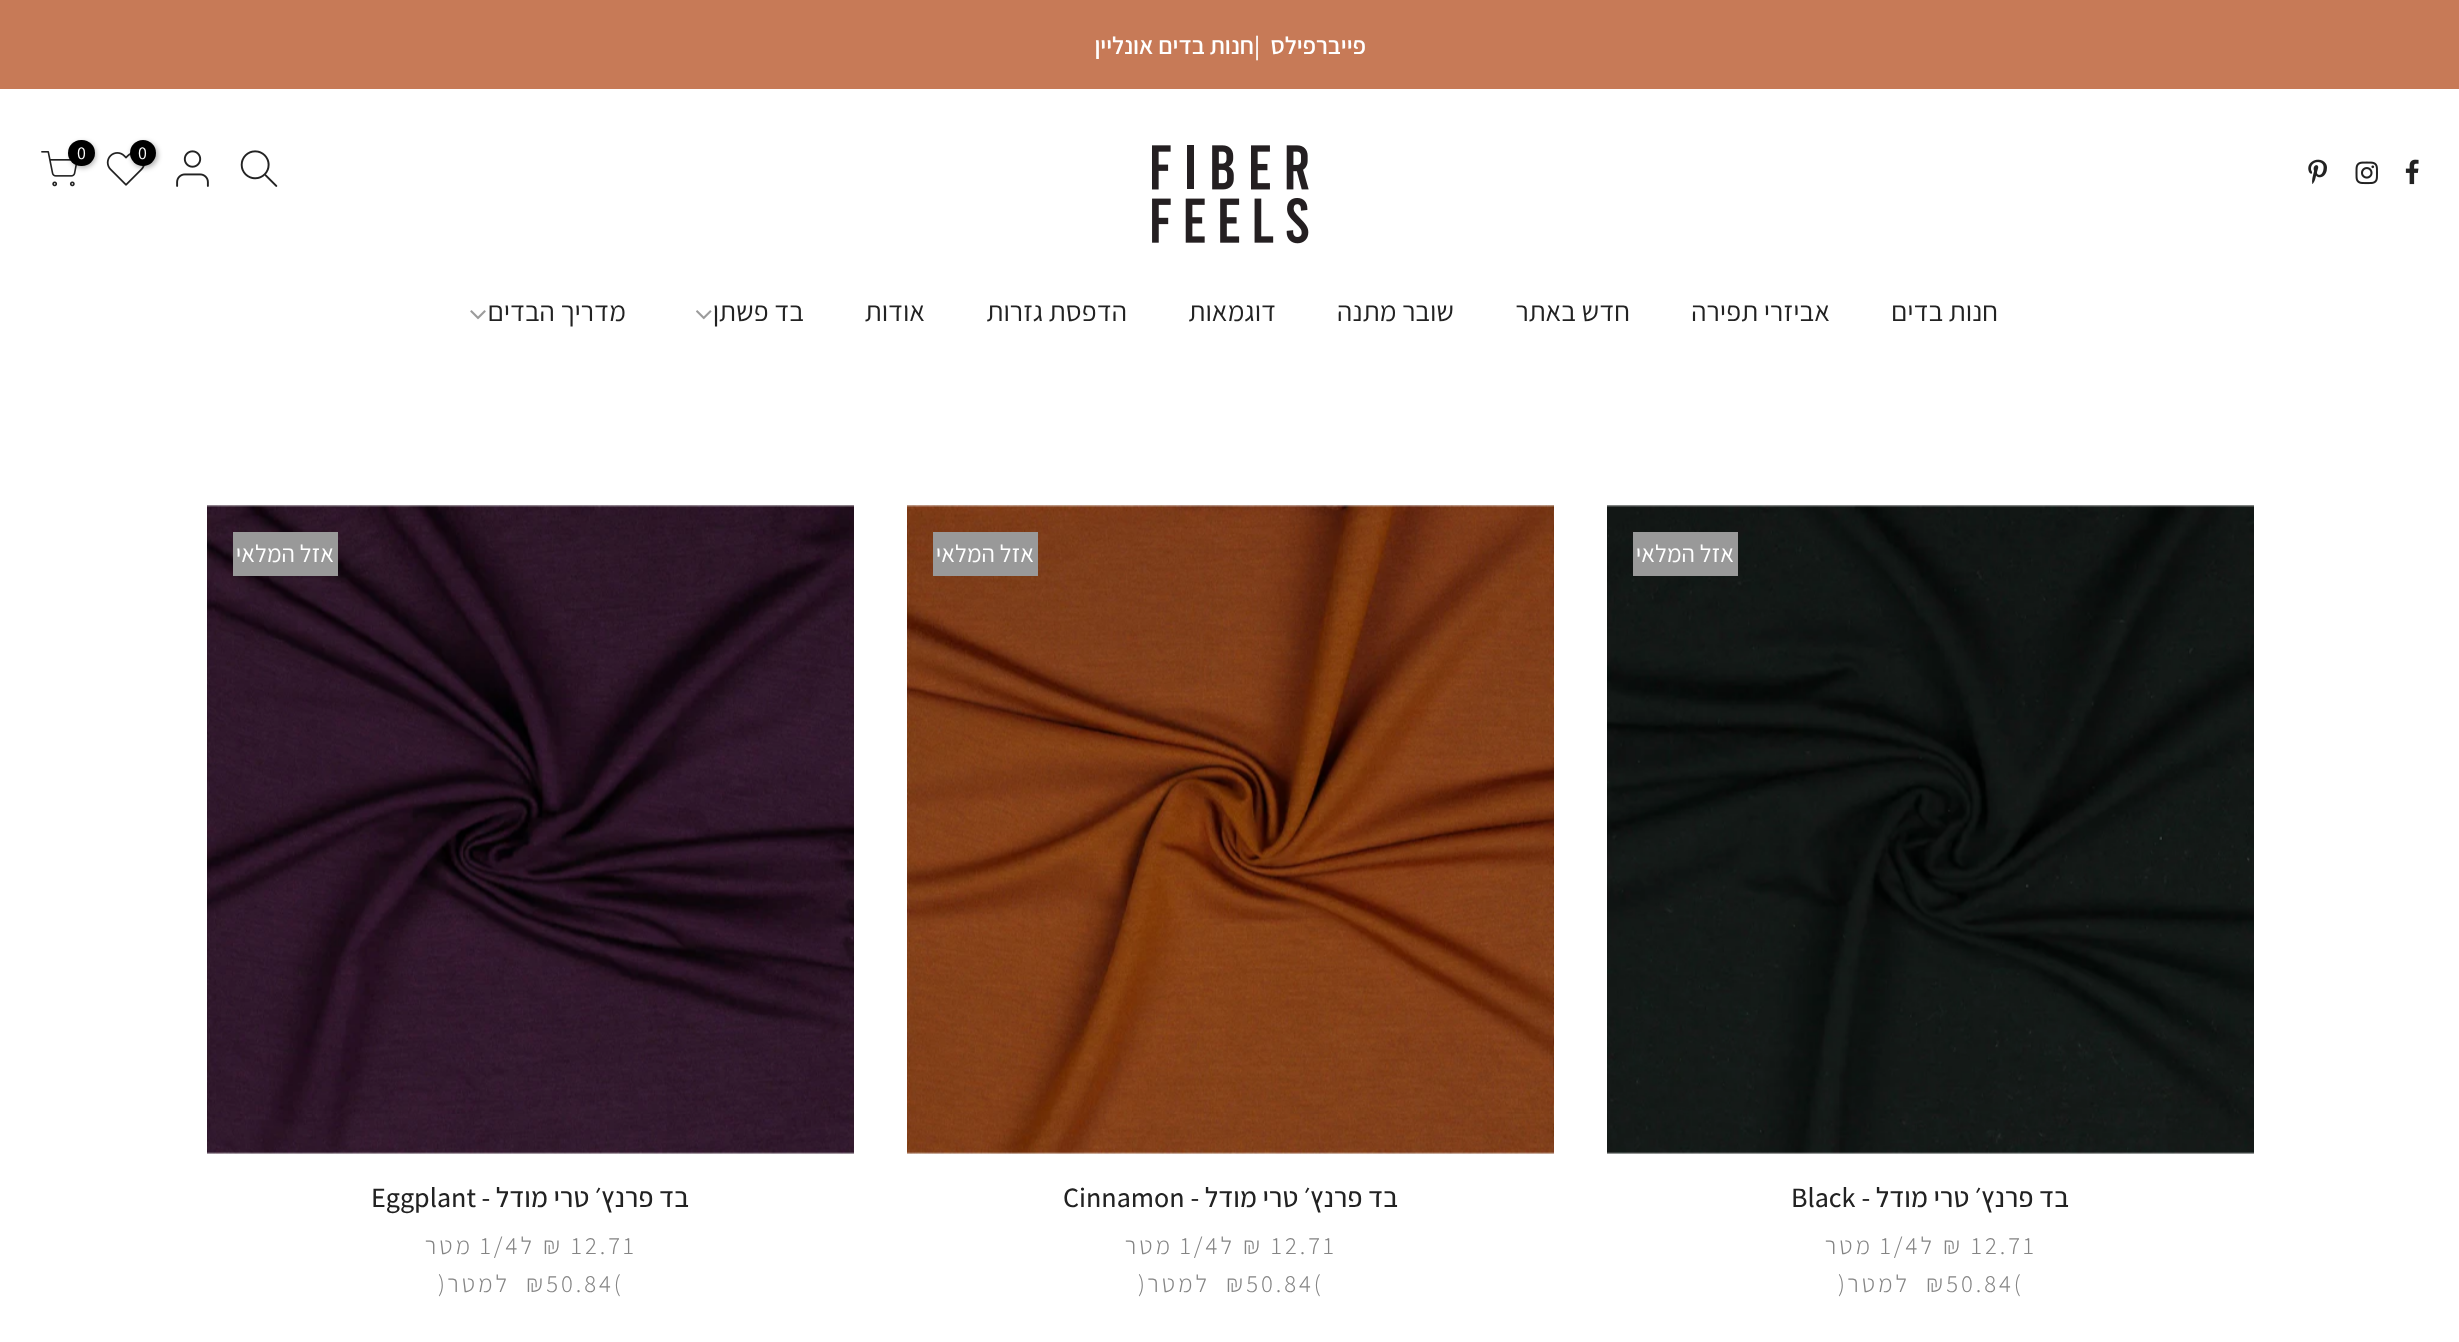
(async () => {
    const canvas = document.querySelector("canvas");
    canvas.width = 2459;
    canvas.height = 1342;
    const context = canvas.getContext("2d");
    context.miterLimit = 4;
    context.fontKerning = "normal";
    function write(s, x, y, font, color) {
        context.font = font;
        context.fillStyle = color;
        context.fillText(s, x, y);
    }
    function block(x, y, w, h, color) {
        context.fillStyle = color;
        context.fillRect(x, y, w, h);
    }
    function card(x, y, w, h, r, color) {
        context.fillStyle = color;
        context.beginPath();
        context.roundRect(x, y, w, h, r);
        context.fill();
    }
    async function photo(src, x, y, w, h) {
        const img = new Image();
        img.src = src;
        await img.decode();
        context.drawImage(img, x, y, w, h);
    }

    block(0, 0, 2459, 1342, "rgb(255, 255, 255)");
    block(0, 0, 2459, 89, "rgb(199, 122, 87)");
    context.direction = "rtl";
    write("פייברפילס", 1366, 54, "600 24.5px Assistant", "rgb(255, 255, 255)");
    context.direction = "ltr";
    write("|", 1254, 54, "600 24.5px Assistant", "rgb(255, 255, 255)");
    context.direction = "rtl";
    write("חנות בדים אונליין", 1254, 54, "600 24.5px Assistant", "rgb(255, 255, 255)");
    await photo("media/1.png", 1152, 145, 157, 99);
    await photo("media/2.png", 240, 150, 38, 37);
    await photo("media/3.png", 176, 150, 33, 37);
    await photo("media/4.png", 106, 152, 39, 34);
    context.fillStyle = "rgba(0, 0, 0, 0.3)";
    context.filter = "blur(2.5px)";
    context.beginPath();
    context.roundRect(131, 142, 27, 26, 13);
    context.fill();
    context.filter = "none";
    context.fillStyle = "rgb(0, 0, 0)";
    context.beginPath();
    context.arc(143, 153, 13, 0, Math.PI * 2);
    context.fill();
    context.direction = "ltr";
    write("0", 138, 159, "18px Assistant", "rgb(255, 255, 255)");
    await photo("media/5.png", 41, 151, 36, 36);
    context.fillStyle = "rgba(0, 0, 0, 0.3)";
    context.filter = "blur(2.5px)";
    context.beginPath();
    context.roundRect(70, 142, 26, 26, 13);
    context.fill();
    context.filter = "none";
    card(68, 140, 27, 26, 13, "rgb(0, 0, 0)");
    write("0", 77, 159, "18px Assistant", "rgb(255, 255, 255)");
    await photo("media/6.png", 2405, 159, 14, 26);
    await photo("media/7.png", 2355, 161, 23, 24);
    await photo("media/8.png", 2308, 159, 19, 25);
    context.direction = "rtl";
    write("חנות בדים", 1998, 321, "28px Assistant", "rgb(34, 34, 34)");
    write("אביזרי תפירה", 1830, 321, "28px Assistant", "rgb(34, 34, 34)");
    write("חדש באתר", 1630, 321, "28px Assistant", "rgb(34, 34, 34)");
    write("שובר מתנה", 1454, 321, "28px Assistant", "rgb(34, 34, 34)");
    write("דוגמאות", 1276, 321, "28px Assistant", "rgb(34, 34, 34)");
    write("הדפסת גזרות", 1127, 321, "28px Assistant", "rgb(34, 34, 34)");
    write("אודות", 925, 321, "28px Assistant", "rgb(34, 34, 34)");
    write("בד פשתן", 804, 321, "28px Assistant", "rgb(34, 34, 34)");
    await photo("media/9.png", 696, 310, 16, 10);
    write("מדריך הבדים", 626, 321, "28px Assistant", "rgb(34, 34, 34)");
    await photo("media/10.png", 470, 310, 16, 10);
    await photo("media/11.png", 1607, 505, 647, 649);
    block(1633, 532, 105, 44, "rgb(153, 153, 153)");
    write("אזל המלאי", 1734, 562, "24.5px Assistant", "rgb(255, 255, 255)");
    write("בד פרנץ׳ טרי מודל -", 2069, 1207, "500 28px Assistant", "rgb(34, 34, 34)");
    context.direction = "ltr";
    write("Black", 1791, 1207, "500 28px Assistant", "rgb(34, 34, 34)");
    context.letterSpacing = "3px";
    write("₪ 12.71", 1943, 1254, "300 24.5px Assistant", "rgb(132, 132, 132)");
    context.direction = "rtl";
    write("ל", 1935, 1254, "300 24.5px Assistant", "rgb(132, 132, 132)");
    context.direction = "ltr";
    write("1/4", 1880, 1254, "300 24.5px Assistant", "rgb(132, 132, 132)");
    context.direction = "rtl";
    write("מטר", 1873, 1254, "300 24.5px Assistant", "rgb(132, 132, 132)");
    context.direction = "ltr";
    write("₪50.84(", 1926, 1292, "300 24.5px Assistant", "rgb(132, 132, 132)");
    context.direction = "rtl";
    write("למטר", 1910, 1292, "300 24.5px Assistant", "rgb(132, 132, 132)");
    context.direction = "ltr";
    write(")", 1838, 1292, "300 24.5px Assistant", "rgb(132, 132, 132)");
    await photo("media/12.png", 907, 505, 647, 649);
    block(933, 532, 105, 44, "rgb(153, 153, 153)");
    context.letterSpacing = "0px";
    context.direction = "rtl";
    write("אזל המלאי", 1034, 562, "24.5px Assistant", "rgb(255, 255, 255)");
    write("בד פרנץ׳ טרי מודל -", 1398, 1207, "500 28px Assistant", "rgb(34, 34, 34)");
    context.direction = "ltr";
    write("Cinnamon", 1063, 1207, "500 28px Assistant", "rgb(34, 34, 34)");
    context.letterSpacing = "3px";
    write("₪ 12.71", 1243, 1254, "300 24.5px Assistant", "rgb(132, 132, 132)");
    context.direction = "rtl";
    write("ל", 1235, 1254, "300 24.5px Assistant", "rgb(132, 132, 132)");
    context.direction = "ltr";
    write("1/4", 1180, 1254, "300 24.5px Assistant", "rgb(132, 132, 132)");
    context.direction = "rtl";
    write("מטר", 1173, 1254, "300 24.5px Assistant", "rgb(132, 132, 132)");
    context.direction = "ltr";
    write("₪50.84(", 1226, 1292, "300 24.5px Assistant", "rgb(132, 132, 132)");
    context.direction = "rtl";
    write("למטר", 1210, 1292, "300 24.5px Assistant", "rgb(132, 132, 132)");
    context.direction = "ltr";
    write(")", 1138, 1292, "300 24.5px Assistant", "rgb(132, 132, 132)");
    await photo("media/13.png", 207, 505, 647, 649);
    block(233, 532, 105, 44, "rgb(153, 153, 153)");
    context.letterSpacing = "0px";
    context.direction = "rtl";
    write("אזל המלאי", 334, 562, "24.5px Assistant", "rgb(255, 255, 255)");
    write("בד פרנץ׳ טרי מודל -", 689, 1207, "500 28px Assistant", "rgb(34, 34, 34)");
    context.direction = "ltr";
    write("Eggplant", 371, 1207, "500 28px Assistant", "rgb(34, 34, 34)");
    context.letterSpacing = "3px";
    write("₪ 12.71", 543, 1254, "300 24.5px Assistant", "rgb(132, 132, 132)");
    context.direction = "rtl";
    write("ל", 535, 1254, "300 24.5px Assistant", "rgb(132, 132, 132)");
    context.direction = "ltr";
    write("1/4", 480, 1254, "300 24.5px Assistant", "rgb(132, 132, 132)");
    context.direction = "rtl";
    write("מטר", 473, 1254, "300 24.5px Assistant", "rgb(132, 132, 132)");
    context.direction = "ltr";
    write("₪50.84(", 526, 1292, "300 24.5px Assistant", "rgb(132, 132, 132)");
    context.direction = "rtl";
    write("למטר", 510, 1292, "300 24.5px Assistant", "rgb(132, 132, 132)");
    context.direction = "ltr";
    write(")", 438, 1292, "300 24.5px Assistant", "rgb(132, 132, 132)");
})();
